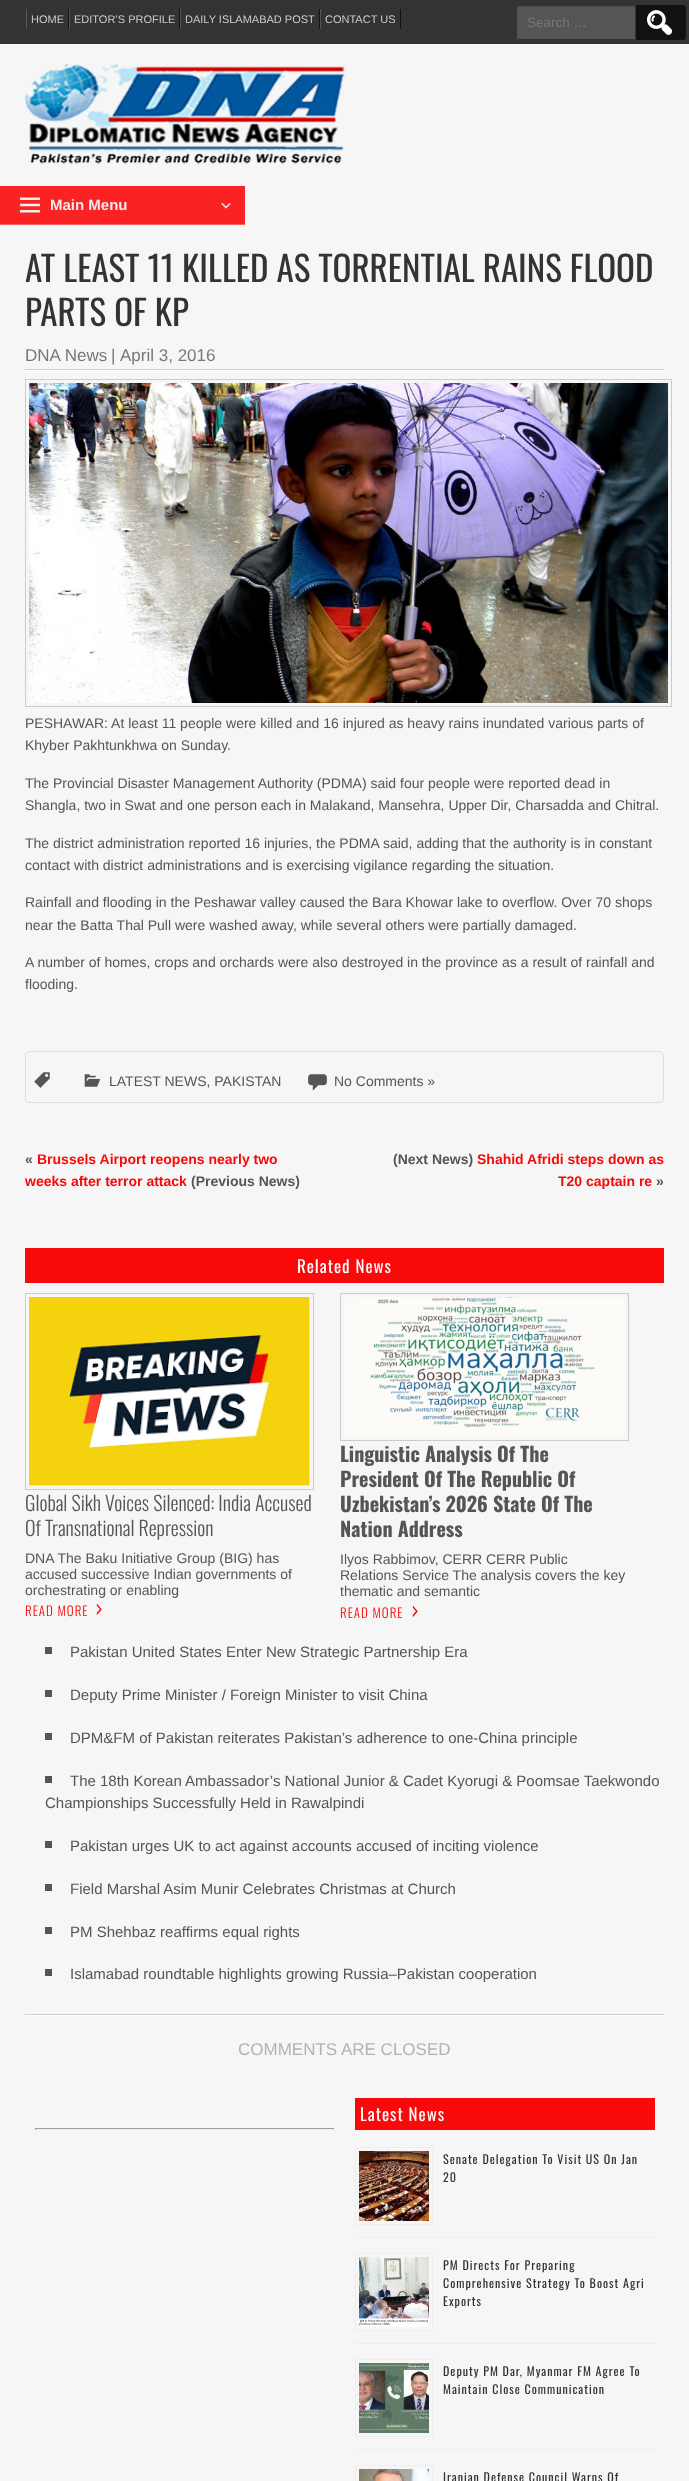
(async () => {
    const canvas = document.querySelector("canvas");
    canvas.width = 689;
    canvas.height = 2481;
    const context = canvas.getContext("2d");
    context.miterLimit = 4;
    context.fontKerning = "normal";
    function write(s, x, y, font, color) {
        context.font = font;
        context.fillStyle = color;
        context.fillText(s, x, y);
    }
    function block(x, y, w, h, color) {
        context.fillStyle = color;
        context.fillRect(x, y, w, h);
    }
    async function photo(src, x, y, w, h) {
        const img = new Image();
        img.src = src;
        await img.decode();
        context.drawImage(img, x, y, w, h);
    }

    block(0, 0, 689, 2481, "rgb(246, 246, 246)");
    block(0, 0, 689, 44, "rgb(51, 51, 51)");
    write("HOME", 31, 23, "11px Liberation Sans", "rgb(204, 204, 204)");
    block(68, 9, 1, 20, "rgb(17, 17, 17)");
    block(26, 9, 1, 20, "rgb(85, 85, 85)");
    write("EDITOR’S PROFILE", 74, 23, "11px Liberation Sans", "rgb(204, 204, 204)");
    block(179, 9, 1, 20, "rgb(17, 17, 17)");
    block(69, 9, 1, 20, "rgb(85, 85, 85)");
    write("DAILY ISLAMABAD POST", 185, 23, "11px Liberation Sans", "rgb(204, 204, 204)");
    block(319, 9, 1, 20, "rgb(17, 17, 17)");
    block(180, 9, 1, 20, "rgb(85, 85, 85)");
    write("CONTACT US", 325, 23, "11px Liberation Sans", "rgb(204, 204, 204)");
    block(400, 9, 1, 20, "rgb(17, 17, 17)");
    block(320, 9, 1, 20, "rgb(85, 85, 85)");
    context.fillStyle = "rgb(17, 17, 17)";
    context.beginPath();
    context.roundRect(631, 5, 55, 35, [0, 3, 3, 0]);
    context.fill();
    context.fillStyle = "rgb(85, 85, 85)";
    context.beginPath();
    context.roundRect(516, 5, 120, 35, [3, 0, 0, 3]);
    context.fill();
    context.fillStyle = "rgb(77, 77, 77)";
    context.beginPath();
    context.moveTo(519, 7);
    context.lineTo(635, 7);
    context.lineTo(635, 6);
    context.lineTo(519, 6);
    context.bezierCurveTo(517, 6, 517, 8, 517, 9);
    context.bezierCurveTo(517, 8, 518, 7, 519, 7);
    context.closePath();
    context.fill();
    context.beginPath();
    context.roundRect(516.5, 5.5, 119, 34, [2.5, 0, 0, 2.5]);
    context.strokeStyle = "rgb(51, 51, 51)";
    context.stroke();
    write("Search …", 527, 27, "13.5px Liberation Sans", "rgb(119, 119, 119)");
    await photo("media/1.png", 647, 10, 25, 25);
    await photo("media/2.png", 25, 64, 320, 100);
    block(0, 186, 245, 38, "rgb(250, 34, 34)");
    block(0, 224, 245, 1, "rgb(252, 100, 100)");
    await photo("media/3.png", 20, 197, 20, 16);
    write("Main Menu", 50, 210, "bold 15px Liberation Sans", "rgb(238, 238, 238)");
    await photo("media/4.png", 221, 202, 10, 7);
    write("AT LEAST 11 KILLED AS TORRENTIAL RAINS FLOOD", 25, 282, "35px Oswald", "rgb(51, 51, 51)");
    write("PARTS OF KP", 25, 326, "35px Oswald", "rgb(51, 51, 51)");
    write("DNA News", 25, 361, "17px Liberation Sans", "rgb(119, 119, 119)");
    write("|", 111, 361, "17px Liberation Sans", "rgb(119, 119, 119)");
    write("April 3, 2016", 120, 361, "17px Liberation Sans", "rgb(119, 119, 119)");
    block(25, 369, 639, 1, "rgb(204, 204, 204)");
    block(25, 370, 639, 1, "rgb(255, 255, 255)");
    context.strokeStyle = "rgb(204, 204, 204)";
    context.strokeRect(25.5, 379.5, 646, 327);
    await photo("media/5.png", 29, 383, 639, 320);
    write("PESHAWAR: At least 11 people were killed and 16 injured as heavy rains inundated various parts of", 25, 728, "14px Liberation Sans", "rgb(85, 85, 85)");
    write("Khyber Pakhtunkhwa on Sunday.", 25, 750, "14px Liberation Sans", "rgb(85, 85, 85)");
    write("The Provincial Disaster Management Authority (PDMA) said four people were reported dead in", 25, 788, "14px Liberation Sans", "rgb(85, 85, 85)");
    write("Shangla, two in Swat and one person each in Malakand, Mansehra, Upper Dir, Charsadda and Chitral.", 25, 810, "14px Liberation Sans", "rgb(85, 85, 85)");
    write("The district administration reported 16 injuries, the PDMA said, adding that the authority is in constant", 25, 848, "14px Liberation Sans", "rgb(85, 85, 85)");
    write("contact with district administrations and is exercising vigilance regarding the situation.", 25, 870, "14px Liberation Sans", "rgb(85, 85, 85)");
    write("Rainfall and flooding in the Peshawar valley caused the Bara Khowar lake to overflow. Over 70 shops", 25, 907, "14px Liberation Sans", "rgb(85, 85, 85)");
    write("near the Batta Thal Pull were washed away, while several others were partially damaged.", 25, 930, "14px Liberation Sans", "rgb(85, 85, 85)");
    write("A number of homes, crops and orchards were also destroyed in the province as a result of rainfall and", 25, 967, "14px Liberation Sans", "rgb(85, 85, 85)");
    write("flooding.", 25, 989, "14px Liberation Sans", "rgb(85, 85, 85)");
    context.beginPath();
    context.roundRect(25.5, 1051.5, 638, 51, 4.5);
    context.strokeStyle = "rgb(221, 221, 221)";
    context.stroke();
    await photo("media/6.png", 34, 1072, 16, 16);
    await photo("media/7.png", 84, 1074, 17, 13);
    write("LATEST NEWS, PAKISTAN", 109, 1086, "14px Liberation Sans", "rgb(85, 85, 85)");
    await photo("media/8.png", 308, 1074, 19, 17);
    write("No Comments »", 334, 1086, "14px Liberation Sans", "rgb(85, 85, 85)");
    write("«", 25, 1164, "bold 14px Liberation Sans", "rgb(85, 85, 85)");
    write("Brussels Airport reopens nearly two", 37, 1164, "bold 14px Liberation Sans", "rgb(249, 9, 9)");
    write("weeks after terror attack", 25, 1186, "bold 14px Liberation Sans", "rgb(249, 9, 9)");
    write("(Previous News)", 191, 1186, "bold 14px Liberation Sans", "rgb(85, 85, 85)");
    write("(Next News)", 393, 1164, "bold 14px Liberation Sans", "rgb(85, 85, 85)");
    write("Shahid Afridi steps down as", 477, 1164, "bold 14px Liberation Sans", "rgb(249, 9, 9)");
    write("T20 captain re", 558, 1186, "bold 14px Liberation Sans", "rgb(249, 9, 9)");
    write("»", 656, 1186, "bold 14px Liberation Sans", "rgb(85, 85, 85)");
    block(25, 1248, 639, 35, "rgb(249, 9, 9)");
    context.letterSpacing = "1px";
    write("Related News", 297, 1273, "17px Oswald", "rgb(255, 255, 255)");
    context.strokeStyle = "rgb(204, 204, 204)";
    context.strokeRect(25.5, 1293.5, 288, 196);
    await photo("media/9.png", 29, 1297, 281, 189);
    context.letterSpacing = "0px";
    write("Global Sikh Voices Silenced: India Accused", 25, 1511, "300 20px Oswald", "rgb(85, 85, 85)");
    write("Of Transnational Repression", 25, 1536, "300 20px Oswald", "rgb(85, 85, 85)");
    write("DNA The Baku Initiative Group (BIG) has", 25, 1563, "14px Liberation Sans", "rgb(85, 85, 85)");
    write("accused successive Indian governments of", 25, 1579, "14px Liberation Sans", "rgb(85, 85, 85)");
    write("orchestrating or enabling", 25, 1595, "14px Liberation Sans", "rgb(85, 85, 85)");
    context.letterSpacing = "1px";
    write("READ MORE", 25, 1616, "300 13px Oswald", "rgb(249, 9, 9)");
    write("›", 95, 1618, "300 25px Oswald", "rgb(249, 9, 9)");
    context.strokeRect(340.5, 1293.5, 288, 147);
    await photo("media/10.png", 344, 1297, 281, 140);
    context.letterSpacing = "0px";
    write("Linguistic Analysis Of The", 340, 1462, "bold 20px Oswald", "rgb(85, 85, 85)");
    write("President Of The Republic Of", 340, 1487, "bold 20px Oswald", "rgb(85, 85, 85)");
    write("Uzbekistan’s 2026 State Of The", 340, 1512, "bold 20px Oswald", "rgb(85, 85, 85)");
    write("Nation Address", 340, 1537, "bold 20px Oswald", "rgb(85, 85, 85)");
    write("Ilyos Rabbimov, CERR CERR Public", 340, 1564, "14px Liberation Sans", "rgb(85, 85, 85)");
    write("Relations Service The analysis covers the key", 340, 1580, "14px Liberation Sans", "rgb(85, 85, 85)");
    write("thematic and semantic", 340, 1596, "14px Liberation Sans", "rgb(85, 85, 85)");
    context.letterSpacing = "1px";
    write("READ MORE", 340, 1618, "300 13px Oswald", "rgb(249, 9, 9)");
    write("›", 411, 1620, "300 25px Oswald", "rgb(249, 9, 9)");
    block(45, 1647, 7, 7, "rgb(85, 85, 85)");
    context.letterSpacing = "0px";
    write("Pakistan United States Enter New Strategic Partnership Era", 70, 1657, "15px Liberation Sans", "rgb(85, 85, 85)");
    block(45, 1690, 7, 7, "rgb(85, 85, 85)");
    write("Deputy Prime Minister / Foreign Minister to visit China", 70, 1700, "15px Liberation Sans", "rgb(85, 85, 85)");
    block(45, 1733, 7, 7, "rgb(85, 85, 85)");
    write("DPM&FM of Pakistan reiterates Pakistan’s adherence to one-China principle", 70, 1743, "15px Liberation Sans", "rgb(85, 85, 85)");
    block(45, 1776, 7, 7, "rgb(85, 85, 85)");
    write("The 18th Korean Ambassador’s National Junior & Cadet Kyorugi & Poomsae Taekwondo", 70, 1786, "15px Liberation Sans", "rgb(85, 85, 85)");
    write("Championships Successfully Held in Rawalpindi", 45, 1808, "15px Liberation Sans", "rgb(85, 85, 85)");
    block(45, 1841, 7, 7, "rgb(85, 85, 85)");
    write("Pakistan urges UK to act against accounts accused of inciting violence", 70, 1851, "15px Liberation Sans", "rgb(85, 85, 85)");
    block(45, 1884, 7, 7, "rgb(85, 85, 85)");
    write("Field Marshal Asim Munir Celebrates Christmas at Church", 70, 1894, "15px Liberation Sans", "rgb(85, 85, 85)");
    block(45, 1927, 7, 7, "rgb(85, 85, 85)");
    write("PM Shehbaz reaffirms equal rights", 70, 1937, "15px Liberation Sans", "rgb(85, 85, 85)");
    block(45, 1969, 7, 7, "rgb(85, 85, 85)");
    write("Islamabad roundtable highlights growing Russia–Pakistan cooperation", 70, 1979, "15px Liberation Sans", "rgb(85, 85, 85)");
    block(25, 2014, 639, 1, "rgb(204, 204, 204)");
    block(25, 2015, 639, 1, "rgb(255, 255, 255)");
    write("COMMENTS ARE CLOSED", 238, 2055, "17px Liberation Sans", "rgb(179, 179, 179)");
    block(35, 2128, 300, 1, "rgb(159, 159, 159)");
    block(334, 2128, 1, 2, "rgb(238, 238, 238)");
    block(35, 2129, 300, 1, "rgb(238, 238, 238)");
    block(35, 2128, 1, 2, "rgb(159, 159, 159)");
    block(355, 2098, 300, 32, "rgb(249, 9, 9)");
    context.letterSpacing = "1px";
    write("Latest News", 360, 2121, "17px Oswald", "rgb(255, 255, 255)");
    block(355, 2237, 300, 1, "rgb(238, 238, 238)");
    context.strokeStyle = "rgb(238, 238, 238)";
    context.strokeRect(355.5, 2147.5, 77, 77);
    await photo("media/11.png", 359, 2151, 70, 70);
    write("Senate Delegation To Visit US On Jan", 443, 2164, "12px Oswald", "rgb(51, 51, 51)");
    write("20", 443, 2182, "12px Oswald", "rgb(51, 51, 51)");
    block(355, 2343, 300, 1, "rgb(238, 238, 238)");
    context.strokeRect(355.5, 2253.5, 77, 77);
    await photo("media/12.png", 359, 2257, 70, 70);
    write("PM Directs For Preparing", 443, 2270, "12px Oswald", "rgb(51, 51, 51)");
    write("Comprehensive Strategy To Boost Agri", 443, 2288, "12px Oswald", "rgb(51, 51, 51)");
    write("Exports", 443, 2306, "12px Oswald", "rgb(51, 51, 51)");
    block(355, 2449, 300, 1, "rgb(238, 238, 238)");
    context.strokeRect(355.5, 2359.5, 77, 77);
    await photo("media/13.png", 359, 2363, 70, 70);
    write("Deputy PM Dar, Myanmar FM Agree To", 443, 2376, "12px Oswald", "rgb(51, 51, 51)");
    write("Maintain Close Communication", 443, 2394, "12px Oswald", "rgb(51, 51, 51)");
    context.strokeRect(355.5, 2465.5, 77, 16);
    await photo("media/14.png", 359, 2469, 70, 12);
    write("Iranian Defense Council Warns Of", 443, 2482, "12px Oswald", "rgb(51, 51, 51)");
})();
